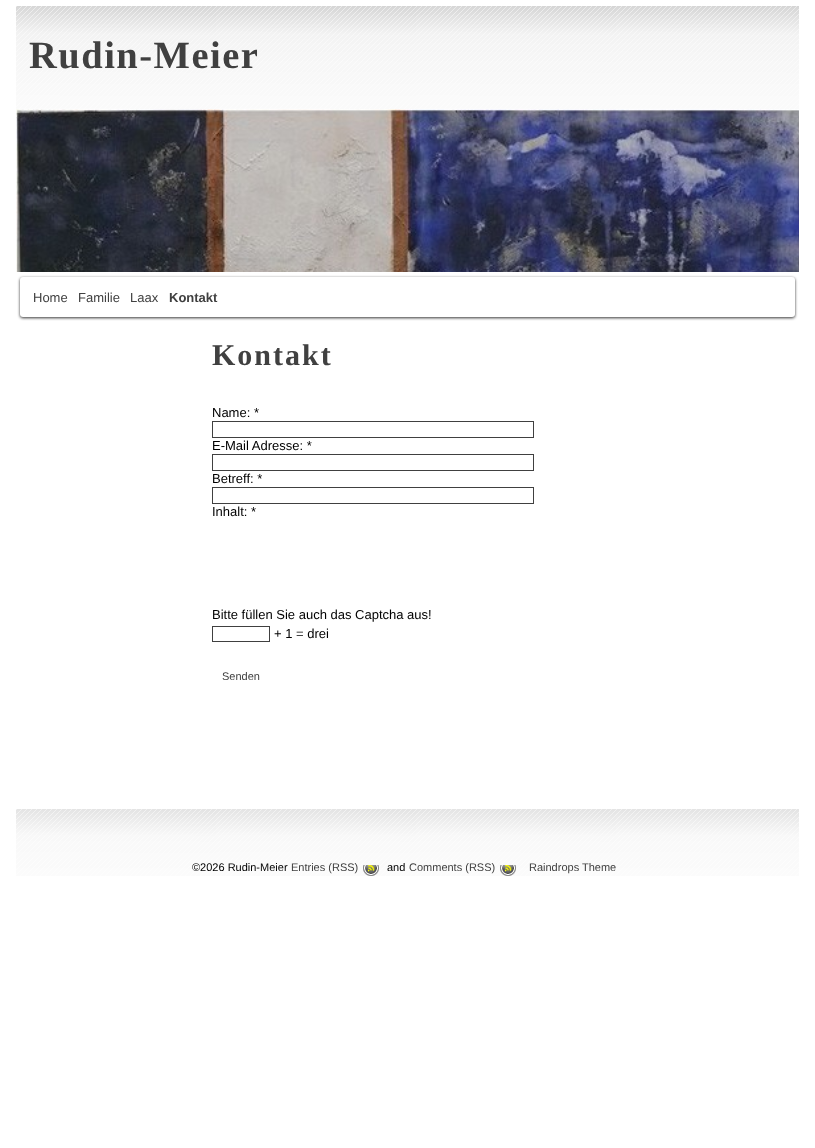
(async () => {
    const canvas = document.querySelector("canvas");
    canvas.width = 815;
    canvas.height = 1148;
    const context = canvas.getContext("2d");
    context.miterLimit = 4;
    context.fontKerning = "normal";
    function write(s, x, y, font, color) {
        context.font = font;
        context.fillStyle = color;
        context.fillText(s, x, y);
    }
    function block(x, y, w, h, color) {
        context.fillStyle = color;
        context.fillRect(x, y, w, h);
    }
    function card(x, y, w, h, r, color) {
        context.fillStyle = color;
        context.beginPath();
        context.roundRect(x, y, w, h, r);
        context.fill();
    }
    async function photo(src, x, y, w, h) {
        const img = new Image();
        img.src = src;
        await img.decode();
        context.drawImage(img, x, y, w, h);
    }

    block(0, 0, 815, 1148, "rgb(255, 255, 255)");
    await photo("media/1.png", 16, 6, 783, 103);
    context.letterSpacing = "1.5px";
    write("Rudin-Meier", 29, 68, "bold 38.5px Liberation Serif", "rgb(64, 64, 64)");
    await photo("media/2.png", 16, 109, 783, 163);
    context.fillStyle = "rgb(51, 51, 51)";
    context.filter = "blur(1.5px)";
    context.beginPath();
    context.roundRect(20, 278, 775, 40, 3);
    context.fill();
    context.filter = "none";
    card(20, 277, 775, 40, 3, "rgb(255, 255, 255)");
    block(793, 277, 1, 1, "rgba(255, 255, 255, 0.3)");
    context.letterSpacing = "0px";
    write("Home", 33, 302, "13px Liberation Sans", "rgb(64, 64, 64)");
    write("Familie", 78, 302, "13px Liberation Sans", "rgb(64, 64, 64)");
    write("Laax", 130, 302, "13px Liberation Sans", "rgb(64, 64, 64)");
    write("Kontakt", 169, 302, "bold 13px Liberation Sans", "rgb(64, 64, 64)");
    context.letterSpacing = "2px";
    write("Kontakt", 212, 365, "bold 30px Liberation Serif", "rgb(64, 64, 64)");
    context.letterSpacing = "0px";
    write("Name: *", 212, 417, "13px Liberation Sans", "rgb(0, 0, 0)");
    context.strokeStyle = "rgb(64, 64, 64)";
    context.strokeRect(212.5, 421.5, 321, 16);
    write("E-Mail Adresse: *", 212, 450, "13px Liberation Sans", "rgb(0, 0, 0)");
    context.strokeRect(212.5, 454.5, 321, 16);
    write("Betreff: *", 212, 483, "13px Liberation Sans", "rgb(0, 0, 0)");
    context.strokeRect(212.5, 487.5, 321, 16);
    write("Inhalt: *", 212, 516, "13px Liberation Sans", "rgb(0, 0, 0)");
    write("Bitte füllen Sie auch das Captcha aus!", 212, 619, "13px Liberation Sans", "rgb(0, 0, 0)");
    context.strokeRect(212.5, 626.5, 57, 15);
    write("+ 1 = drei", 274, 638, "13px Liberation Sans", "rgb(0, 0, 0)");
    write("Senden", 222, 680, "11px Liberation Sans", "rgb(64, 64, 64)");
    await photo("media/3.png", 16, 809, 783, 67);
    write("©2026 Rudin-Meier", 192, 871, "11px Liberation Sans", "rgb(0, 0, 0)");
    write("Entries (RSS)", 291, 871, "11px Liberation Sans", "rgb(64, 64, 64)");
    await photo("media/4.png", 363, 865, 16, 11);
    write("and", 387, 871, "11px Liberation Sans", "rgb(0, 0, 0)");
    write("Comments (RSS)", 409, 871, "11px Liberation Sans", "rgb(64, 64, 64)");
    await photo("media/5.png", 500, 865, 16, 11);
    write("Raindrops Theme", 529, 871, "11px Liberation Sans", "rgb(64, 64, 64)");
})();
